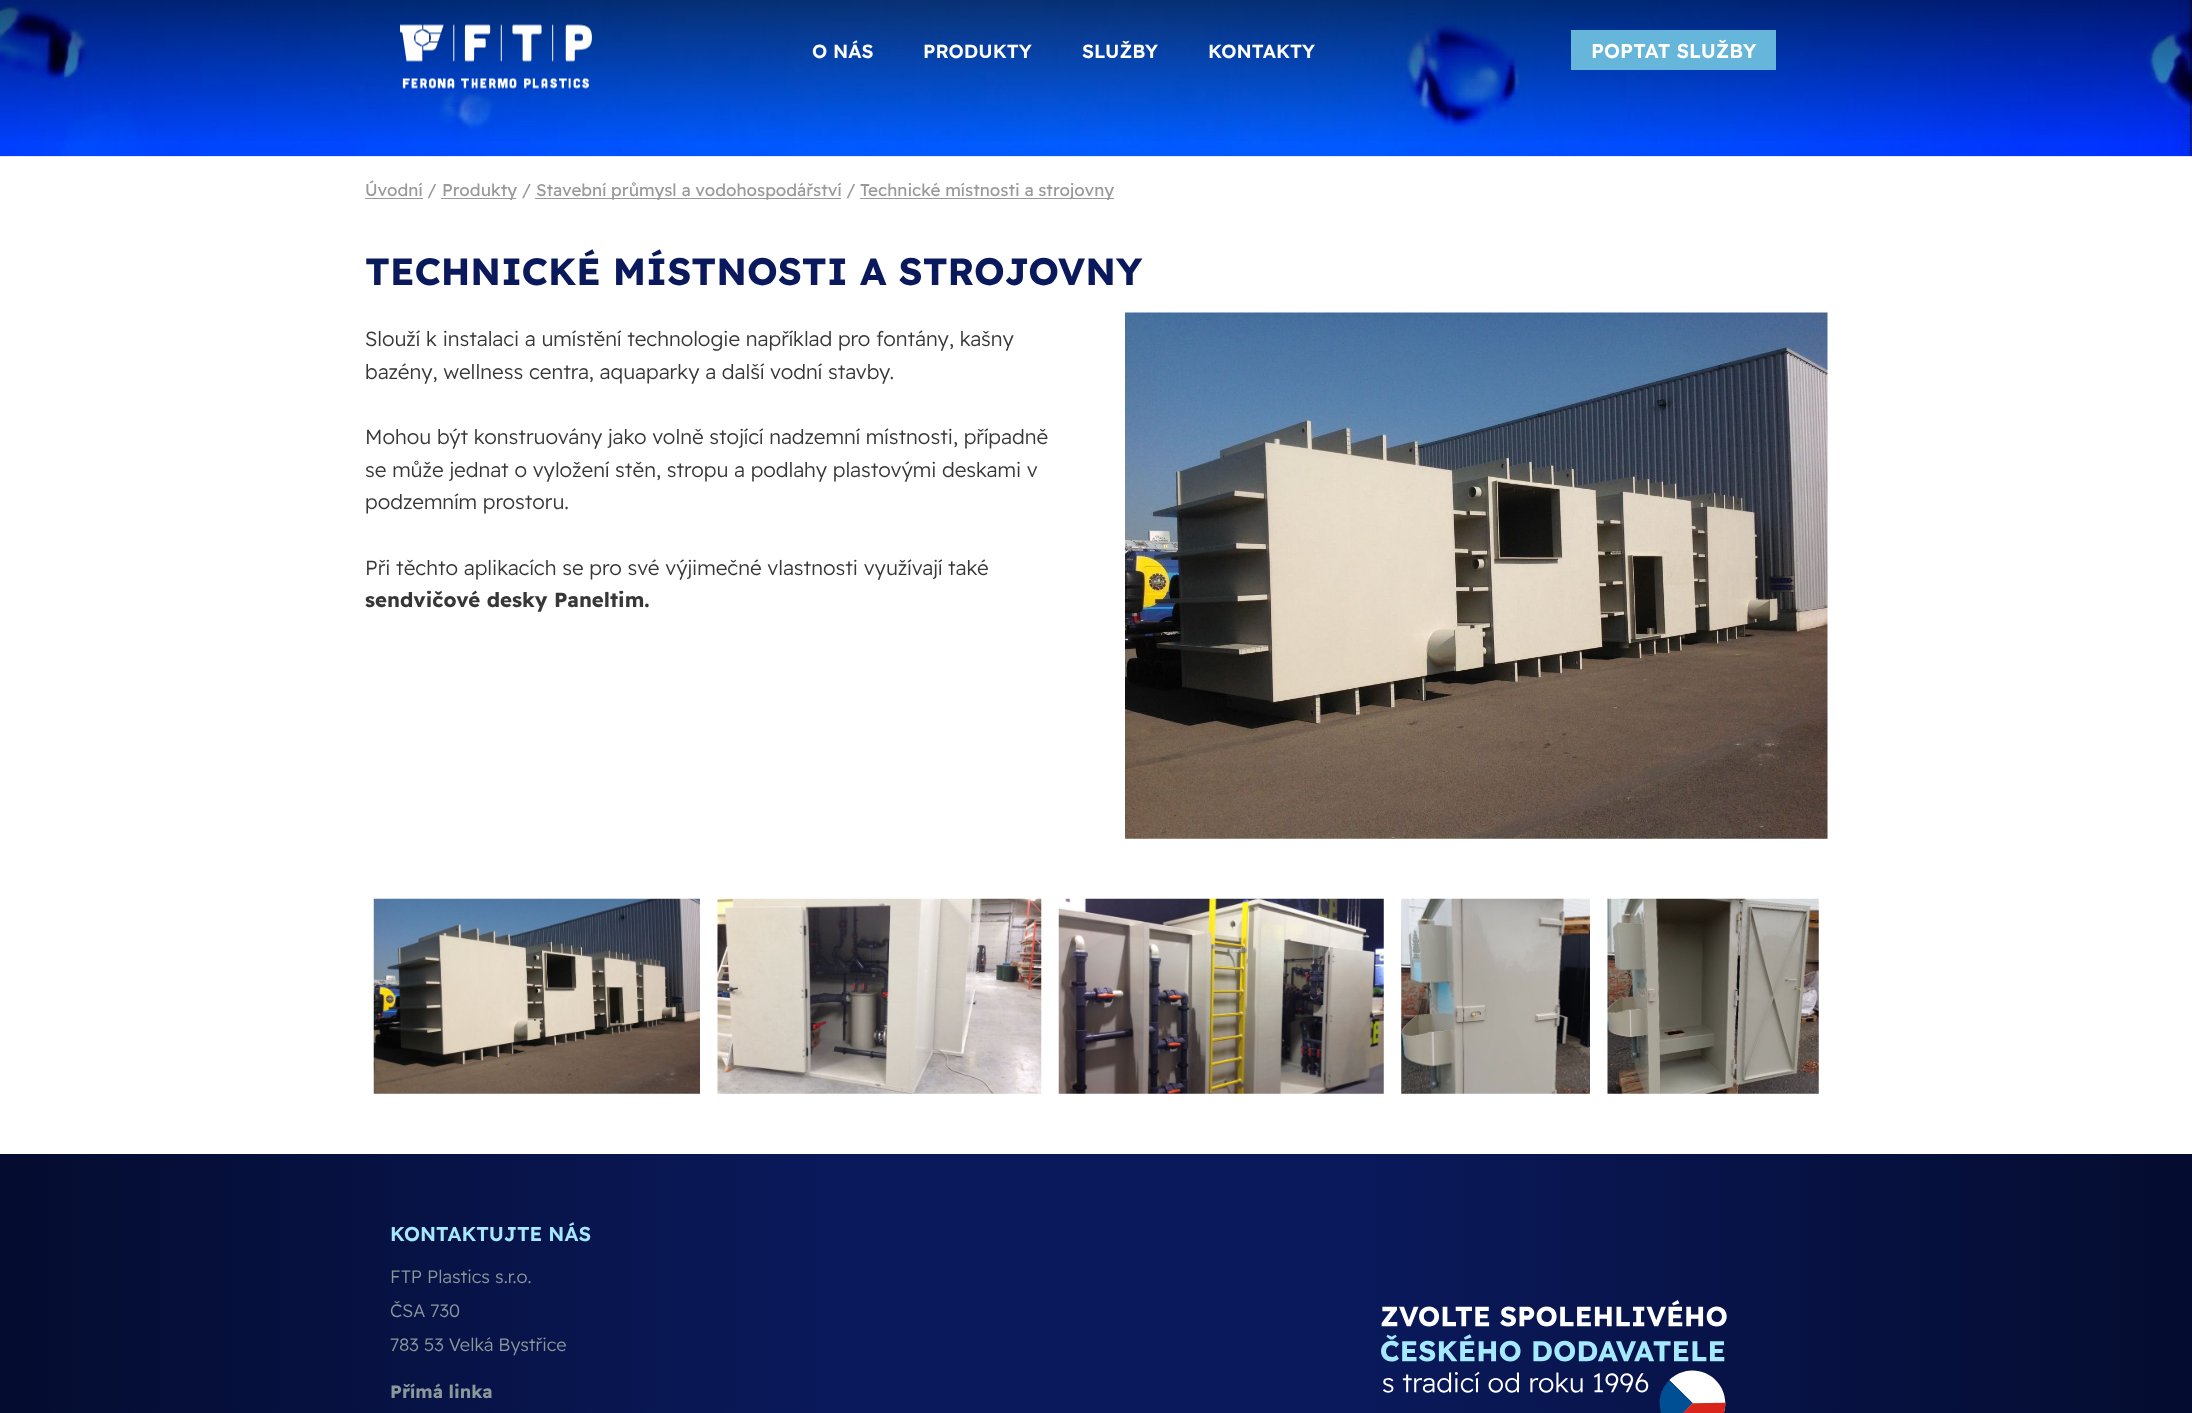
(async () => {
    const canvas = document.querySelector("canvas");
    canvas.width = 2192;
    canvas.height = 1413;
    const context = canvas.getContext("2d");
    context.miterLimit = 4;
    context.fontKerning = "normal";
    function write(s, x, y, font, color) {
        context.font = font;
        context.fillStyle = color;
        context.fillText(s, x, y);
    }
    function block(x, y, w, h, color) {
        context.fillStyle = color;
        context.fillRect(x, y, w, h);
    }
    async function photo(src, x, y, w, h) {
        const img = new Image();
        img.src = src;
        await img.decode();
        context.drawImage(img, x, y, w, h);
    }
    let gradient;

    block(0, 0, 2192, 1413, "rgb(255, 255, 255)");
    await photo("media/1.png", 0, 0, 2192, 157);
    await photo("media/2.png", 0, 156, 2192, 1);
    gradient = context.createLinearGradient(1096, 0, 1096, 188);
    gradient.addColorStop(0, "rgba(0, 0, 0, 0.55)");
    gradient.addColorStop(0.78, "rgba(0, 0, 0, 0)");
    context.fillStyle = gradient;
    context.fillRect(0, 0, 2192, 141);
    await photo("media/3.png", 400, 24, 192, 65);
    write("O NÁS", 812, 58, "600 19px Readex Pro", "rgb(255, 255, 255)");
    write("PRODUKTY", 923, 58, "600 19px Readex Pro", "rgb(255, 255, 255)");
    write("SLUŽBY", 1082, 58, "600 19px Readex Pro", "rgb(255, 255, 255)");
    write("KONTAKTY", 1208, 58, "600 19px Readex Pro", "rgb(255, 255, 255)");
    block(1571, 30, 205, 40, "rgb(101, 182, 218)");
    write("POPTAT SLUŽBY", 1591, 58, "600 20px Readex Pro", "rgb(255, 255, 255)");
    block(365, 198, 58, 1, "rgb(153, 153, 153)");
    write("Úvodní /", 365, 196, "17px Readex Pro", "rgb(153, 153, 153)");
    block(441, 198, 75, 1, "rgb(153, 153, 153)");
    write("Produkty /", 442, 196, "17px Readex Pro", "rgb(153, 153, 153)");
    block(535, 198, 306, 1, "rgb(153, 153, 153)");
    write("Stavební průmysl a vodohospodářství /", 536, 196, "17px Readex Pro", "rgb(153, 153, 153)");
    block(860, 198, 254, 1, "rgb(153, 153, 153)");
    write("Technické místnosti a strojovny", 860, 196, "17px Readex Pro", "rgb(153, 153, 153)");
    write("TECHNICKÉ MÍSTNOSTI A STROJOVNY", 365, 285, "bold 38px Readex Pro", "rgb(10, 25, 91)");
    write("Slouží k instalaci a umístění technologie například pro fontány, kašny", 365, 346, "300 20.4px Readex Pro", "rgb(55, 55, 55)");
    write("bazény, wellness centra, aquaparky a další vodní stavby.", 365, 379, "300 20.4px Readex Pro", "rgb(55, 55, 55)");
    write("Mohou být konstruovány jako volně stojící nadzemní místnosti, případně", 365, 444, "300 20.4px Readex Pro", "rgb(55, 55, 55)");
    write("se může jednat o vyložení stěn, stropu a podlahy plastovými deskami v", 365, 477, "300 20.4px Readex Pro", "rgb(55, 55, 55)");
    write("podzemním prostoru.", 365, 509, "300 20.4px Readex Pro", "rgb(55, 55, 55)");
    write("Při těchto aplikacích se pro své výjimečné vlastnosti využívají také", 365, 575, "300 20.4px Readex Pro", "rgb(55, 55, 55)");
    write("sendvičové desky Paneltim.", 365, 607, "bold 20.4px Readex Pro", "rgb(55, 55, 55)");
    await photo("media/4.png", 1125, 312, 703, 527);
    await photo("media/5.png", 373, 898, 327, 196);
    await photo("media/6.png", 717, 898, 325, 196);
    await photo("media/7.png", 1058, 898, 326, 196);
    await photo("media/8.png", 1401, 898, 189, 196);
    await photo("media/9.png", 1607, 898, 212, 196);
    gradient = context.createLinearGradient(0, 1386, 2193, 1386);
    gradient.addColorStop(0, "rgb(4, 12, 47)");
    gradient.addColorStop(0.38, "rgb(10, 25, 91)");
    gradient.addColorStop(0.62, "rgb(10, 25, 91)");
    gradient.addColorStop(1, "rgb(4, 12, 47)");
    context.fillStyle = gradient;
    context.fillRect(0, 1154, 2192, 259);
    write("KONTAKTUJTE NÁS", 390, 1241, "600 20px Readex Pro", "rgb(165, 233, 255)");
    write("FTP Plastics s.r.o.", 390, 1283, "300 18px Readex Pro", "rgb(140, 151, 154)");
    write("ČSA 730", 390, 1317, "300 18px Readex Pro", "rgb(140, 151, 154)");
    write("783 53 Velká Bystřice", 390, 1351, "300 18px Readex Pro", "rgb(140, 151, 154)");
    write("Přímá linka", 390, 1398, "bold 18px Readex Pro", "rgb(140, 151, 154)");
    await photo("media/10.png", 1381, 1300, 346, 113);
})();
